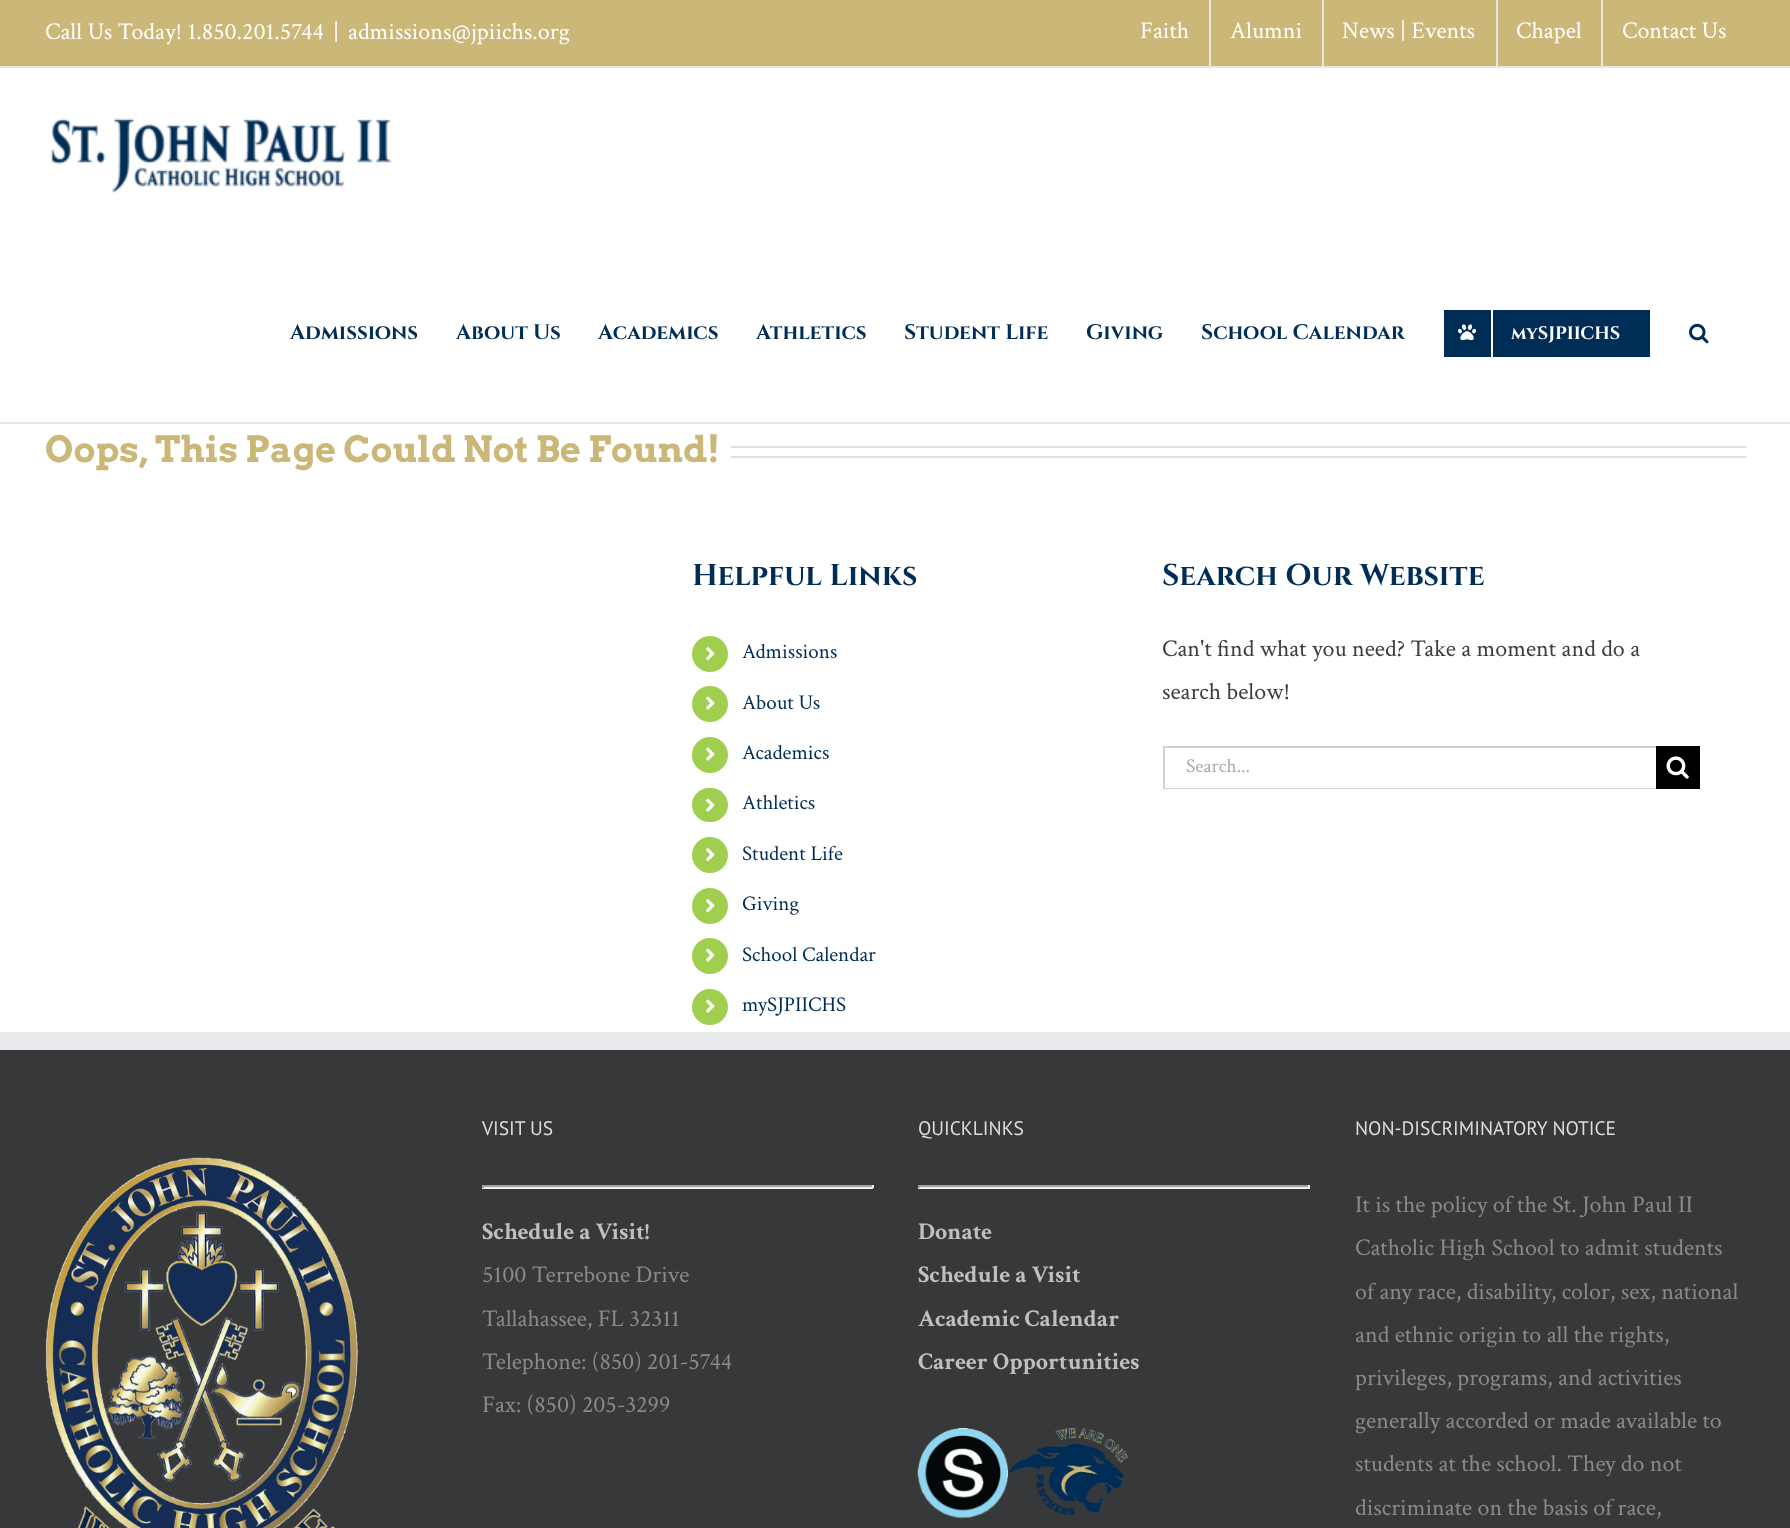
(async () => {
    const canvas = document.querySelector("canvas");
    canvas.width = 1790;
    canvas.height = 1528;
    const context = canvas.getContext("2d");
    context.miterLimit = 4;
    context.fontKerning = "normal";
    function write(s, x, y, font, color) {
        context.font = font;
        context.fillStyle = color;
        context.fillText(s, x, y);
    }
    function block(x, y, w, h, color) {
        context.fillStyle = color;
        context.fillRect(x, y, w, h);
    }
    function card(x, y, w, h, r, color) {
        context.fillStyle = color;
        context.beginPath();
        context.roundRect(x, y, w, h, r);
        context.fill();
    }
    async function photo(src, x, y, w, h) {
        const img = new Image();
        img.src = src;
        await img.decode();
        context.drawImage(img, x, y, w, h);
    }

    block(0, 0, 1790, 1528, "rgb(255, 255, 255)");
    block(0, 0, 1790, 66, "rgb(203, 183, 120)");
    block(0, 66, 1790, 2, "rgb(229, 229, 229)");
    write("Call Us Today! 1.850.201.5744", 45, 39, "24px Crimson Text", "rgb(255, 255, 255)");
    write("|", 333, 39, "24px Crimson Text", "rgb(255, 255, 255)");
    write("admissions@jpiichs.org", 348, 39, "24px Crimson Text", "rgb(255, 255, 255)");
    write("Faith", 1140, 38, "24px Crimson Text", "rgb(255, 255, 255)");
    block(1209, 0, 2, 66, "rgb(229, 229, 229)");
    write("Alumni", 1230, 38, "24px Crimson Text", "rgb(255, 255, 255)");
    block(1322, 0, 2, 66, "rgb(229, 229, 229)");
    write("News | Events", 1342, 38, "24px Crimson Text", "rgb(255, 255, 255)");
    block(1496, 0, 2, 66, "rgb(229, 229, 229)");
    write("Chapel", 1516, 38, "24px Crimson Text", "rgb(255, 255, 255)");
    block(1601, 0, 2, 66, "rgb(229, 229, 229)");
    write("Contact Us", 1622, 38, "24px Crimson Text", "rgb(255, 255, 255)");
    block(0, 422, 1790, 2, "rgb(229, 229, 229)");
    await photo("media/1.png", 50, 118, 342, 75);
    write("Admissions", 290, 339, "bold 21px Cinzel", "rgb(0, 45, 86)");
    write("About Us", 456, 339, "bold 21px Cinzel", "rgb(0, 45, 86)");
    write("Academics", 598, 339, "bold 21px Cinzel", "rgb(0, 45, 86)");
    write("Athletics", 756, 339, "bold 21px Cinzel", "rgb(0, 45, 86)");
    write("Student Life", 904, 339, "bold 21px Cinzel", "rgb(0, 45, 86)");
    write("Giving", 1086, 339, "bold 21px Cinzel", "rgb(0, 45, 86)");
    write("School Calendar", 1201, 339, "bold 21px Cinzel", "rgb(0, 45, 86)");
    block(1444, 310, 206, 47, "rgb(0, 45, 86)");
    block(1491, 309, 2, 48, "rgb(255, 255, 255)");
    await photo("media/2.png", 1458, 324, 18, 17);
    write("mySJPIICHS", 1511, 339, "bold 18px Cinzel", "rgb(255, 255, 255)");
    await photo("media/3.png", 1689, 323, 20, 21);
    write("Oops, This Page Could Not Be Found!", 45, 462, "bold 36px Arvo", "rgb(203, 183, 120)");
    block(731, 446, 1015, 2, "rgb(224, 222, 222)");
    block(731, 456, 1015, 2, "rgb(224, 222, 222)");
    write("Helpful Links", 692, 585, "bold 30px Cinzel", "rgb(0, 45, 86)");
    context.fillStyle = "rgb(160, 206, 78)";
    context.beginPath();
    context.arc(710, 654, 18, 0, Math.PI * 2);
    context.fill();
    await photo("media/4.png", 706, 647, 9, 14);
    write("Admissions", 742, 658, "21px Crimson Text", "rgb(0, 45, 86)");
    context.fillStyle = "rgb(160, 206, 78)";
    context.beginPath();
    context.arc(710, 704, 18, 0, Math.PI * 2);
    context.fill();
    await photo("media/5.png", 706, 696, 9, 14);
    write("About Us", 742, 709, "21px Crimson Text", "rgb(0, 45, 86)");
    context.fillStyle = "rgb(160, 206, 78)";
    context.beginPath();
    context.arc(710, 755, 18, 0, Math.PI * 2);
    context.fill();
    await photo("media/5.png", 706, 747, 9, 14);
    write("Academics", 742, 759, "21px Crimson Text", "rgb(0, 45, 86)");
    card(692, 788, 36, 34, 17, "rgb(160, 206, 78)");
    await photo("media/5.png", 706, 798, 9, 14);
    write("Athletics", 742, 809, "21px Crimson Text", "rgb(0, 45, 86)");
    context.fillStyle = "rgb(160, 206, 78)";
    context.beginPath();
    context.arc(710, 855, 18, 0, Math.PI * 2);
    context.fill();
    await photo("media/4.png", 706, 848, 9, 14);
    write("Student Life", 742, 860, "21px Crimson Text", "rgb(0, 45, 86)");
    context.fillStyle = "rgb(160, 206, 78)";
    context.beginPath();
    context.arc(710, 906, 18, 0, Math.PI * 2);
    context.fill();
    await photo("media/4.png", 706, 899, 9, 14);
    write("Giving", 742, 910, "21px Crimson Text", "rgb(0, 45, 86)");
    context.fillStyle = "rgb(160, 206, 78)";
    context.beginPath();
    context.arc(710, 956, 18, 0, Math.PI * 2);
    context.fill();
    await photo("media/5.png", 706, 948, 9, 14);
    write("School Calendar", 742, 961, "21px Crimson Text", "rgb(0, 45, 86)");
    context.fillStyle = "rgb(160, 206, 78)";
    context.beginPath();
    context.arc(710, 1007, 18, 0, Math.PI * 2);
    context.fill();
    await photo("media/5.png", 706, 999, 9, 14);
    write("mySJPIICHS", 742, 1011, "21px Crimson Text", "rgb(0, 45, 86)");
    write("Search Our Website", 1162, 585, "bold 30px Cinzel", "rgb(0, 45, 86)");
    write("Can't find what you need? Take a moment and do a", 1162, 656, "24px Crimson Text", "rgb(61, 61, 61)");
    write("search below!", 1162, 699, "24px Crimson Text", "rgb(61, 61, 61)");
    block(1163, 746, 493, 2, "rgb(210, 210, 210)");
    block(1163, 788, 493, 1, "rgb(210, 210, 210)");
    block(1163, 746, 2, 43, "rgb(210, 210, 210)");
    write("Search...", 1186, 772, "19.5px Crimson Text", "rgb(170, 169, 169)");
    block(1656, 746, 44, 43, "rgb(0, 0, 0)");
    await photo("media/6.png", 1666, 756, 23, 23);
    block(0, 1050, 1790, 478, "rgb(54, 56, 57)");
    block(0, 1032, 1790, 18, "rgb(233, 234, 238)");
    await photo("media/7.png", 45, 1157, 314, 371);
    write("VISIT US", 482, 1135, "19.5px PT Sans", "rgb(221, 221, 221)");
    block(482, 1185, 391, 2, "rgb(159, 159, 159)");
    block(872, 1185, 2, 3, "rgb(238, 238, 238)");
    block(482, 1187, 391, 2, "rgb(238, 238, 238)");
    block(482, 1185, 2, 3, "rgb(159, 159, 159)");
    write("Schedule a Visit!", 482, 1239, "bold 24px Crimson Text", "rgb(191, 191, 191)");
    write("5100 Terrebone Drive", 482, 1282, "24px Crimson Text", "rgb(140, 137, 137)");
    write("Tallahassee, FL 32311", 482, 1326, "24px Crimson Text", "rgb(140, 137, 137)");
    write("Telephone: (850) 201-5744", 482, 1369, "24px Crimson Text", "rgb(140, 137, 137)");
    write("Fax: (850) 205-3299", 482, 1412, "24px Crimson Text", "rgb(140, 137, 137)");
    write("QUICKLINKS", 918, 1135, "19.5px PT Sans", "rgb(221, 221, 221)");
    block(918, 1185, 392, 2, "rgb(159, 159, 159)");
    block(1308, 1185, 2, 3, "rgb(238, 238, 238)");
    block(918, 1187, 392, 2, "rgb(238, 238, 238)");
    block(918, 1185, 2, 3, "rgb(159, 159, 159)");
    write("Donate", 918, 1239, "bold 24px Crimson Text", "rgb(191, 191, 191)");
    write("Schedule a Visit", 918, 1282, "bold 24px Crimson Text", "rgb(191, 191, 191)");
    write("Academic Calendar", 918, 1326, "bold 24px Crimson Text", "rgb(191, 191, 191)");
    write("Career Opportunities", 918, 1369, "bold 24px Crimson Text", "rgb(191, 191, 191)");
    await photo("media/8.png", 917, 1428, 91, 91);
    await photo("media/9.png", 1008, 1428, 120, 87);
    write("NON-DISCRIMINATORY NOTICE", 1355, 1135, "19.5px PT Sans", "rgb(221, 221, 221)");
    write("It is the policy of the St. John Paul II", 1355, 1212, "24px Crimson Text", "rgb(140, 137, 137)");
    write("Catholic High School to admit students", 1355, 1255, "24px Crimson Text", "rgb(140, 137, 137)");
    write("of any race, disability, color, sex, national", 1355, 1299, "24px Crimson Text", "rgb(140, 137, 137)");
    write("and ethnic origin to all the rights,", 1355, 1342, "24px Crimson Text", "rgb(140, 137, 137)");
    write("privileges, programs, and activities", 1355, 1385, "24px Crimson Text", "rgb(140, 137, 137)");
    write("generally accorded or made available to", 1355, 1428, "24px Crimson Text", "rgb(140, 137, 137)");
    write("students at the school. They do not", 1355, 1471, "24px Crimson Text", "rgb(140, 137, 137)");
    write("discriminate on the basis of race,", 1355, 1515, "24px Crimson Text", "rgb(140, 137, 137)");
})();
